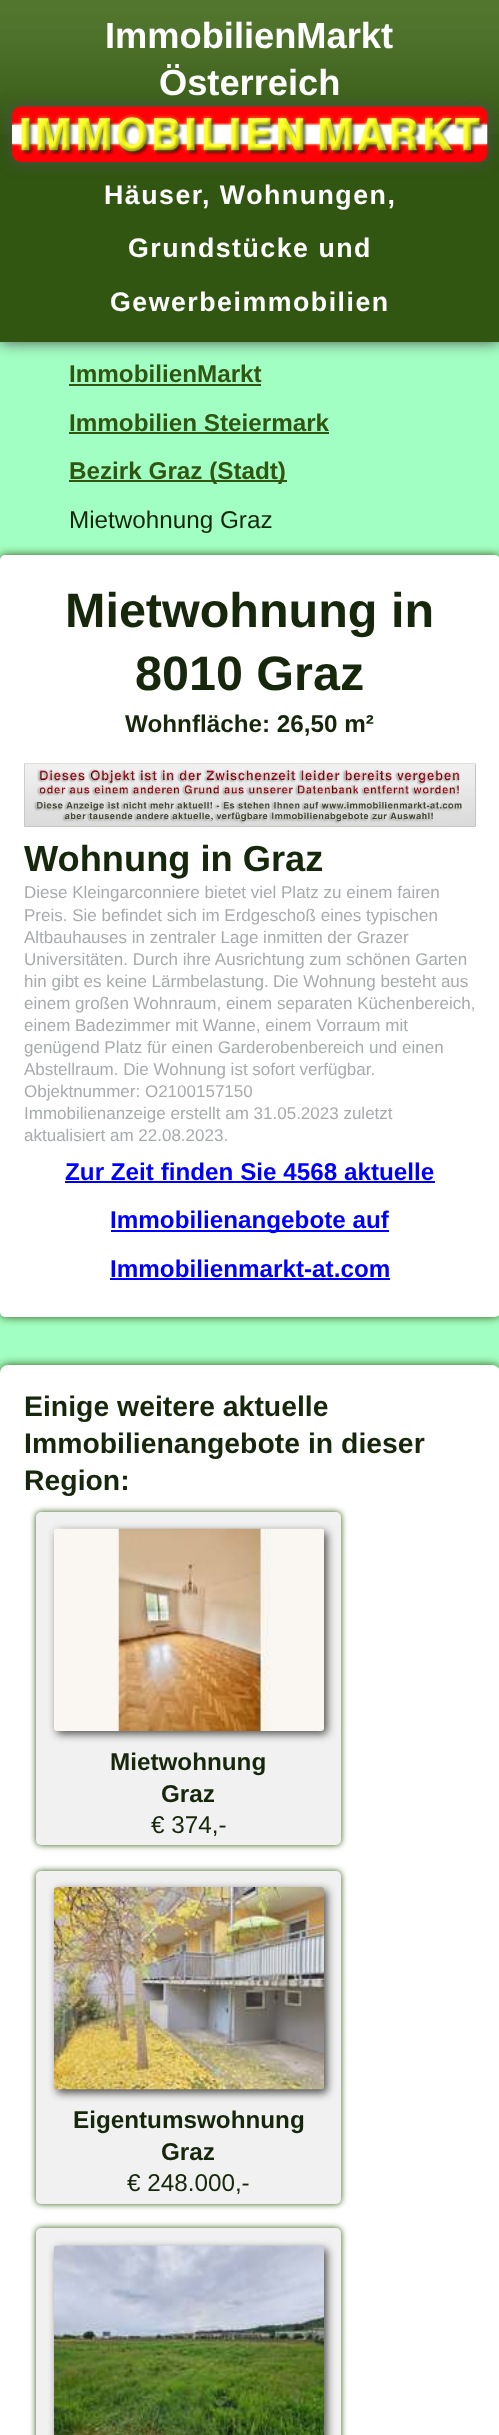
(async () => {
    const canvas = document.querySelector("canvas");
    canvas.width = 499;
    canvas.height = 2435;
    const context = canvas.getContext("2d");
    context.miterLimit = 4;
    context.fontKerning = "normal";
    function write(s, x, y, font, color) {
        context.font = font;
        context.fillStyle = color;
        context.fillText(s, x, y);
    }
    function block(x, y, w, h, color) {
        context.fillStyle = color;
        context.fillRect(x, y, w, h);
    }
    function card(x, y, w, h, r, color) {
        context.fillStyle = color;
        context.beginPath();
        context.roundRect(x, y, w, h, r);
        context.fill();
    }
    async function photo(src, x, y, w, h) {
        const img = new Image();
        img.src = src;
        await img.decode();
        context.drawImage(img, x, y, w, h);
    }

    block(0, 0, 499, 2435, "rgb(162, 255, 195)");
    context.fillStyle = "rgb(78, 78, 77)";
    context.filter = "blur(7.5px)";
    context.beginPath();
    context.rect(0, 0, 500, 342);
    context.fill();
    context.filter = "none";
    block(0, 134, 499, 208, "rgb(49, 86, 17)");
    await photo("media/1.png", 0, 0, 499, 134);
    write("ImmobilienMarkt", 105, 48, "bold 36.25px Liberation Sans", "rgb(255, 255, 255)");
    write("Österreich", 159, 95, "bold 36.25px Liberation Sans", "rgb(255, 255, 255)");
    context.fillStyle = "rgb(78, 78, 77)";
    context.filter = "blur(7.5px)";
    context.beginPath();
    context.roundRect(12, 107, 476, 55, 9);
    context.fill();
    context.filter = "none";
    await photo("media/2.png", 12, 106, 476, 56);
    context.letterSpacing = "1.5px";
    write("Häuser", 104, 204, "bold 26.75px Liberation Sans", "rgb(255, 255, 255)");
    write(", Wohnungen,", 202, 204, "bold 26.75px Liberation Sans", "rgb(255, 255, 255)");
    write("Grundstücke und", 128, 257, "bold 26.75px Liberation Sans", "rgb(255, 255, 255)");
    write("Gewerbeimmobilien", 110, 311, "bold 26.75px Liberation Sans", "rgb(255, 255, 255)");
    context.letterSpacing = "0px";
    write("ImmobilienMarkt", 69, 382, "bold 24.25px Liberation Sans", "rgb(49, 86, 17)");
    block(69, 384, 192, 2, "rgb(49, 86, 17)");
    write("Immobilien Steiermark", 69, 431, "bold 24.25px Liberation Sans", "rgb(49, 86, 17)");
    block(69, 432, 260, 2, "rgb(49, 86, 17)");
    block(69, 480, 218, 2, "rgb(49, 86, 17)");
    write("Bezirk Graz (Stadt)", 69, 479, "bold 24.25px Liberation Sans", "rgb(49, 86, 17)");
    write("Mietwohnung Graz", 69, 528, "24.25px Liberation Sans", "rgb(22, 39, 12)");
    context.fillStyle = "rgb(49, 86, 17)";
    context.filter = "blur(5px)";
    context.beginPath();
    context.roundRect(0, 555, 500, 762, 5);
    context.fill();
    context.filter = "none";
    card(0, 555, 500, 762, 5, "rgb(255, 255, 255)");
    write("Mietwohnung in", 65, 627, "bold 48.5px Liberation Sans", "rgb(22, 39, 12)");
    write("8010 Graz", 135, 690, "bold 48.5px Liberation Sans", "rgb(22, 39, 12)");
    write("Wohnfläche: 26,50 m²", 125, 732, "bold 24.25px Liberation Sans", "rgb(22, 39, 12)");
    await photo("media/3.png", 24, 763, 452, 64);
    write("Wohnung in Graz", 24, 871, "bold 36.25px Liberation Sans", "rgb(22, 39, 12)");
    write("Diese Kleingarconniere bietet viel Platz zu einem fairen", 24, 898, "17px Liberation Sans", "rgb(168, 171, 173)");
    write("Preis. Sie befindet sich im Erdgeschoß eines typischen", 24, 921, "17px Liberation Sans", "rgb(168, 171, 173)");
    write("Altbauhauses in zentraler Lage inmitten der Grazer", 24, 943, "17px Liberation Sans", "rgb(168, 171, 173)");
    write("Universitäten. Durch ihre Ausrichtung zum schönen Garten", 24, 965, "17px Liberation Sans", "rgb(168, 171, 173)");
    write("hin gibt es keine Lärmbelastung.", 24, 987, "17px Liberation Sans", "rgb(168, 171, 173)");
    write("Die Wohnung besteht aus", 273, 987, "17px Liberation Sans", "rgb(168, 171, 173)");
    write("einem großen Wohnraum, einem separaten Küchenbereich,", 24, 1009, "17px Liberation Sans", "rgb(168, 171, 173)");
    write("einem Badezimmer mit Wanne, einem Vorraum mit", 24, 1031, "17px Liberation Sans", "rgb(168, 171, 173)");
    write("genügend Platz für einen Garderobenbereich und einen", 24, 1053, "17px Liberation Sans", "rgb(168, 171, 173)");
    write("Abstellraum. Die Wohnung ist sofort verfügbar.", 24, 1075, "17px Liberation Sans", "rgb(168, 171, 173)");
    write("Objektnummer: O2100157150", 24, 1097, "17px Liberation Sans", "rgb(168, 171, 173)");
    write("Immobilienanzeige erstellt am 31.05.2023 zuletzt", 24, 1119, "17px Liberation Sans", "rgb(168, 171, 173)");
    write("aktualisiert am 22.08.2023.", 24, 1141, "17px Liberation Sans", "rgb(168, 171, 173)");
    write("Zur Zeit finden Sie 4568 aktuelle", 65, 1180, "bold 24.25px Liberation Sans", "rgb(0, 0, 255)");
    block(65, 1181, 370, 2, "rgb(0, 0, 255)");
    block(111, 1230, 278, 2, "rgb(0, 0, 255)");
    write("Immobilienangebote auf", 110, 1228, "bold 24.25px Liberation Sans", "rgb(0, 0, 255)");
    write("Immobilienmarkt-at.com", 110, 1277, "bold 24.25px Liberation Sans", "rgb(0, 0, 255)");
    block(110, 1278, 280, 2, "rgb(0, 0, 255)");
    context.fillStyle = "rgb(49, 86, 17)";
    context.filter = "blur(5px)";
    context.beginPath();
    context.roundRect(0, 1365, 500, 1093, 8);
    context.fill();
    context.filter = "none";
    card(0, 1365, 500, 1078, 8, "rgb(255, 255, 255)");
    write("Einige weitere aktuelle", 24, 1416, "bold 28.4px Liberation Sans", "rgb(22, 39, 12)");
    write("Immobilienangebote in dieser", 24, 1453, "bold 28.4px Liberation Sans", "rgb(22, 39, 12)");
    write("Region:", 24, 1490, "bold 28.4px Liberation Sans", "rgb(22, 39, 12)");
    context.fillStyle = "rgb(49, 86, 17)";
    context.filter = "blur(3px)";
    context.beginPath();
    context.roundRect(36, 1512, 305, 333, 5);
    context.fill();
    context.filter = "none";
    card(36, 1512, 305, 333, 5, "rgb(241, 241, 241)");
    context.fillStyle = "rgb(78, 78, 77)";
    context.filter = "blur(4px)";
    context.beginPath();
    context.roundRect(57, 1532, 270, 202, 3);
    context.fill();
    context.filter = "none";
    await photo("media/4.png", 54, 1528, 270, 203);
    write("Mietwohnung", 110, 1770, "bold 24.25px Liberation Sans", "rgb(22, 39, 12)");
    write("Graz", 161, 1802, "bold 24.25px Liberation Sans", "rgb(22, 39, 12)");
    write("€ 374,-", 151, 1833, "24.25px Liberation Sans", "rgb(22, 39, 12)");
    context.fillStyle = "rgb(49, 86, 17)";
    context.filter = "blur(3px)";
    context.beginPath();
    context.roundRect(36, 1871, 305, 333, 5);
    context.fill();
    context.filter = "none";
    card(36, 1871, 305, 333, 5, "rgb(241, 241, 241)");
    context.fillStyle = "rgb(78, 78, 77)";
    context.filter = "blur(4px)";
    context.beginPath();
    context.roundRect(57, 1890, 270, 203, 3);
    context.fill();
    context.filter = "none";
    await photo("media/5.png", 54, 1887, 270, 203);
    write("Eigentumswohnung", 73, 2128, "bold 24.25px Liberation Sans", "rgb(22, 39, 12)");
    write("Graz", 161, 2160, "bold 24.25px Liberation Sans", "rgb(22, 39, 12)");
    write("€ 248.000,-", 127, 2191, "24.25px Liberation Sans", "rgb(22, 39, 12)");
    context.fillStyle = "rgb(49, 86, 17)";
    context.filter = "blur(3px)";
    context.beginPath();
    context.roundRect(36, 2228, 305, 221, 5);
    context.fill();
    context.filter = "none";
    card(36, 2228, 305, 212, 5, "rgb(241, 241, 241)");
    context.fillStyle = "rgb(78, 78, 77)";
    context.filter = "blur(4px)";
    context.beginPath();
    context.roundRect(57, 2249, 270, 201, 3);
    context.fill();
    context.filter = "none";
    await photo("media/6.png", 54, 2245, 270, 190);
})();
